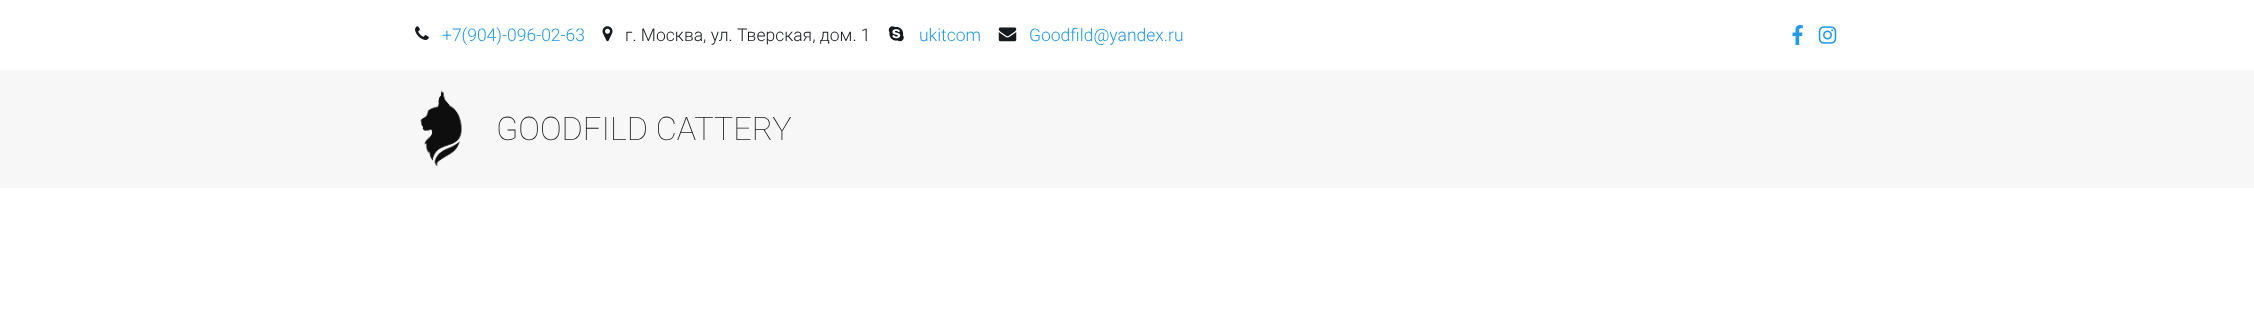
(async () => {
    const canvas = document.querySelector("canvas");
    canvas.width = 2254;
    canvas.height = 329;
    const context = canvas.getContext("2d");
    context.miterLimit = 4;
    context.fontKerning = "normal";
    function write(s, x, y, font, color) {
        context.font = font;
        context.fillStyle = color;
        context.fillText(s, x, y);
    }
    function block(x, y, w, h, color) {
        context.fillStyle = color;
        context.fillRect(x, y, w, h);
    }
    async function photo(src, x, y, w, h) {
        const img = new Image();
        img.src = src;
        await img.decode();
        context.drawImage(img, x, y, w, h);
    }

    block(0, 0, 2254, 329, "rgb(255, 255, 255)");
    await photo("media/1.png", 415, 26, 14, 14);
    write("+7(904)-096-02-63", 442, 41, "300 17.5px Roboto", "rgb(37, 154, 232)");
    await photo("media/2.png", 602, 26, 11, 16);
    write("г. Москва, ул. Тверская, дом. 1", 625, 41, "300 17.5px Roboto", "rgb(23, 26, 28)");
    await photo("media/3.png", 888, 26, 16, 16);
    write("ukitcom", 919, 41, "300 17.5px Roboto", "rgb(37, 154, 232)");
    await photo("media/4.png", 998, 27, 19, 15);
    write("Goodfild@yandex.ru", 1029, 41, "300 17.5px Roboto", "rgb(37, 154, 232)");
    await photo("media/5.png", 1792, 25, 11, 20);
    await photo("media/6.png", 1818, 26, 19, 18);
    block(0, 70, 2254, 118, "rgb(247, 247, 247)");
    await photo("media/7.png", 420, 90, 42, 77);
    write("GOODFILD CATTERY", 496, 140, "100 32.5px Roboto", "rgb(23, 26, 28)");
})();
